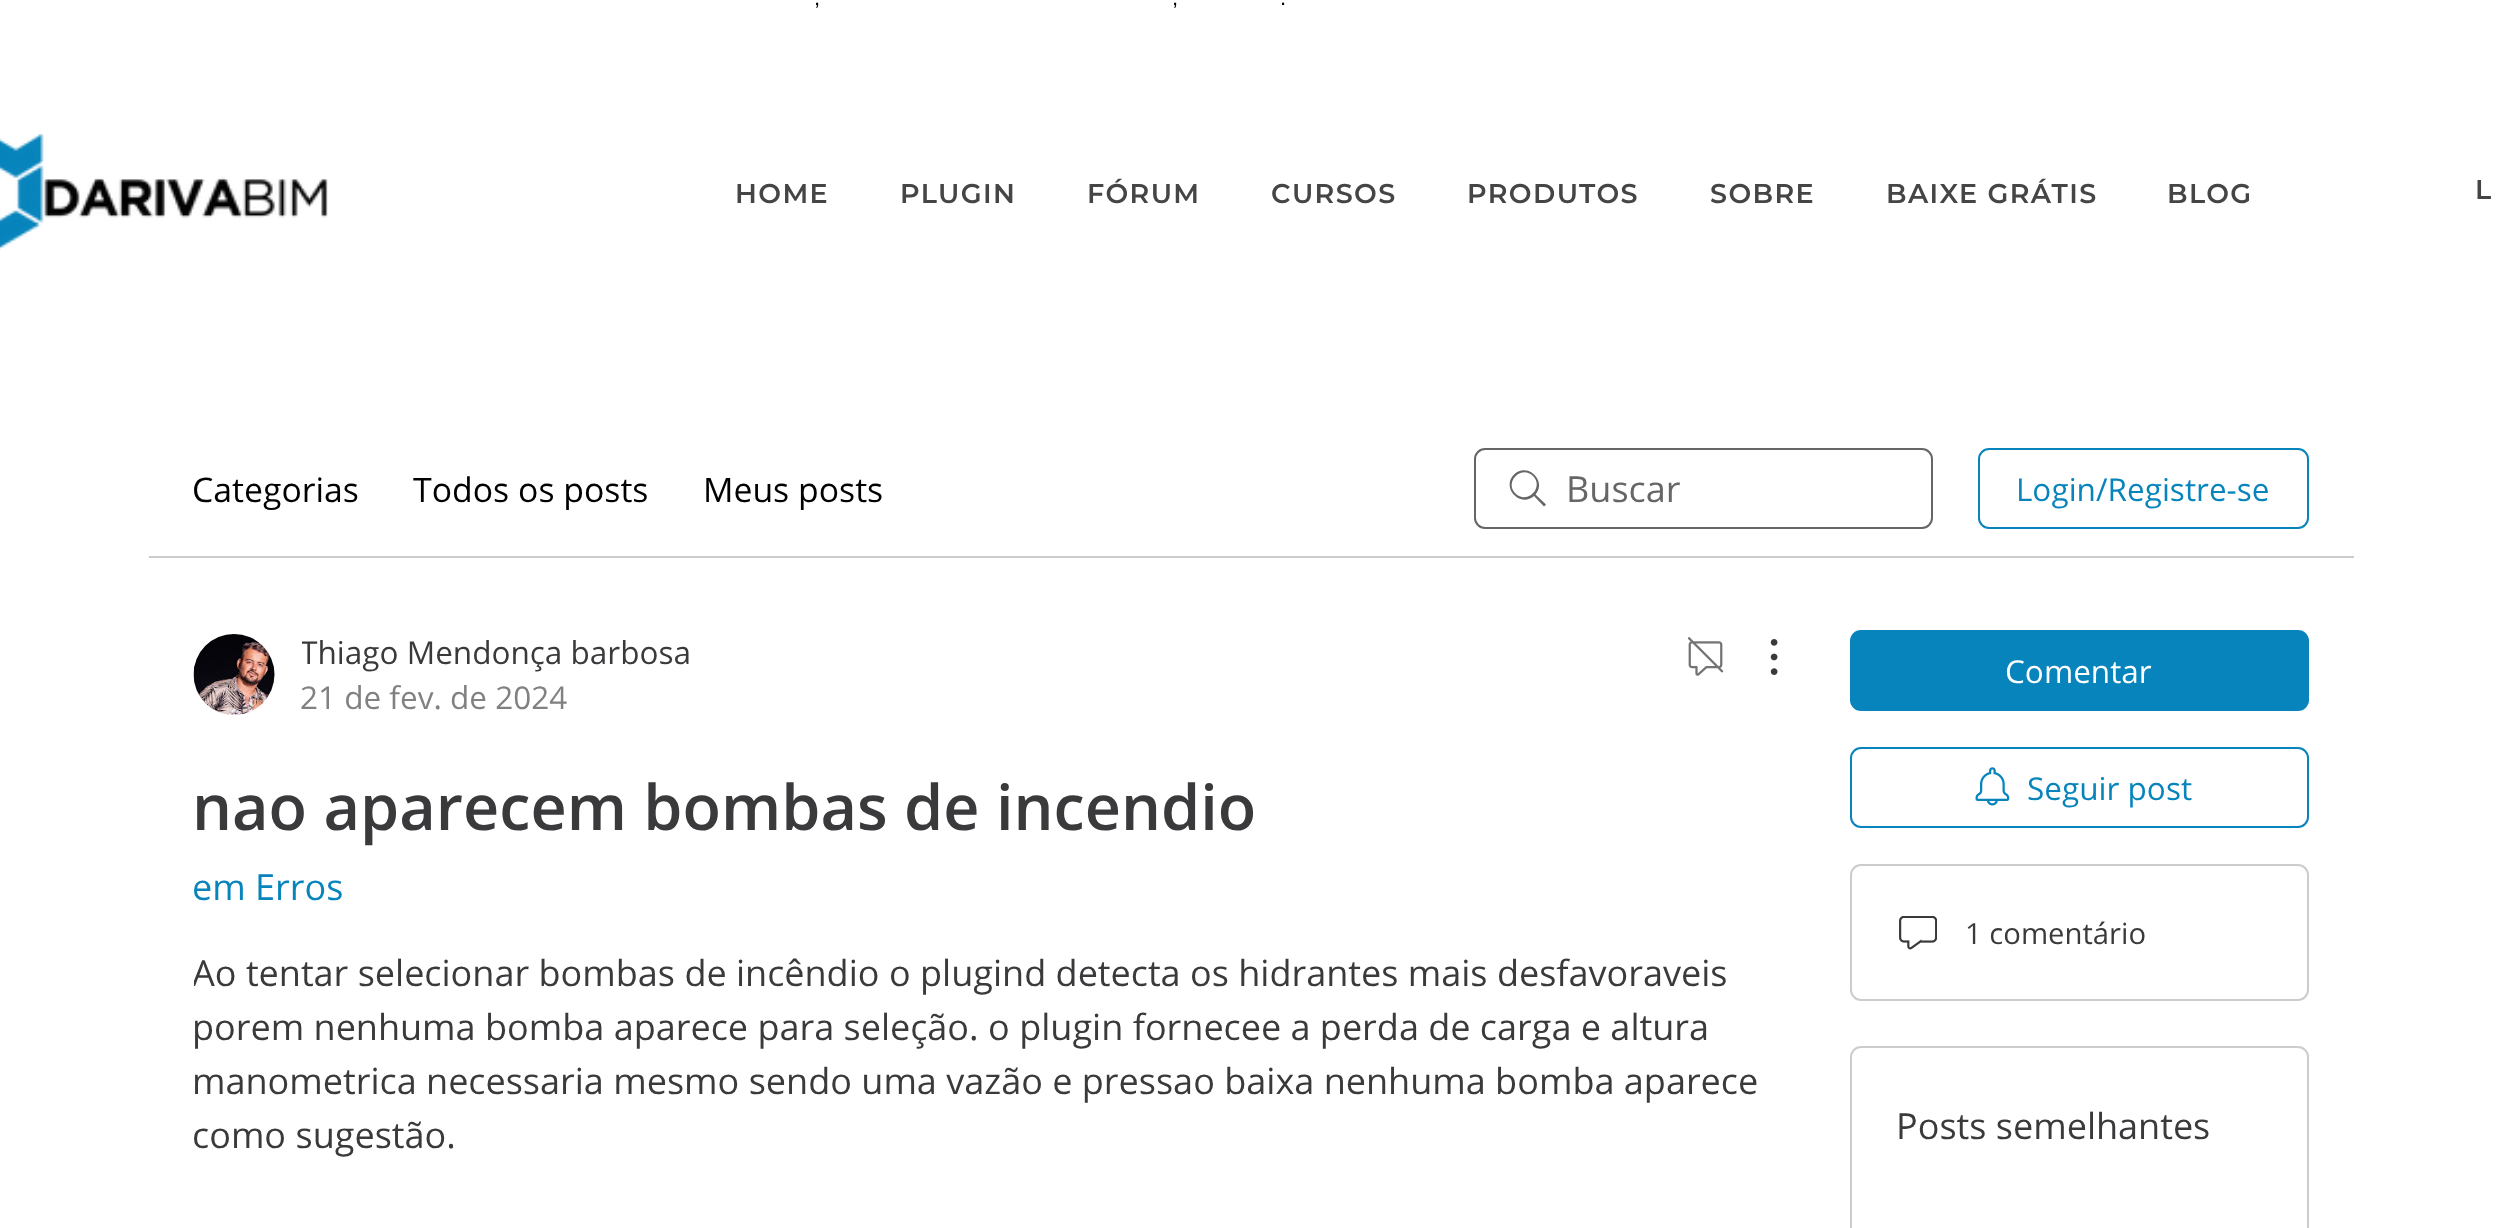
(async () => {
    const canvas = document.querySelector("canvas");
    canvas.width = 2497;
    canvas.height = 1228;
    const context = canvas.getContext("2d");
    context.miterLimit = 4;
    context.fontKerning = "normal";
    function write(s, x, y, font, color) {
        context.font = font;
        context.fillStyle = color;
        context.fillText(s, x, y);
    }
    function block(x, y, w, h, color) {
        context.fillStyle = color;
        context.fillRect(x, y, w, h);
    }
    function card(x, y, w, h, r, color) {
        context.fillStyle = color;
        context.beginPath();
        context.roundRect(x, y, w, h, r);
        context.fill();
    }
    async function photo(src, x, y, w, h) {
        const img = new Image();
        img.src = src;
        await img.decode();
        context.drawImage(img, x, y, w, h);
    }

    block(0, 0, 2497, 1228, "rgb(255, 255, 255)");
    write(",", 814, 5, "22px Liberation Sans", "rgb(0, 0, 0)");
    write(",", 1172, 5, "22px Liberation Sans", "rgb(0, 0, 0)");
    write(".", 1280, 5, "22px Liberation Sans", "rgb(0, 0, 0)");
    await photo("media/1.png", 0, 134, 328, 116);
    context.letterSpacing = "1.4px";
    write("HOME", 735, 203, "600 27px Montserrat", "rgb(69, 69, 69)");
    write("PLUGIN", 900, 203, "600 27px Montserrat", "rgb(69, 69, 69)");
    write("FÓRUM", 1087, 203, "600 27px Montserrat", "rgb(69, 69, 69)");
    write("CURSOS", 1271, 203, "600 27px Montserrat", "rgb(69, 69, 69)");
    write("PRODUTOS", 1467, 203, "600 27px Montserrat", "rgb(69, 69, 69)");
    write("SOBRE", 1710, 203, "600 27px Montserrat", "rgb(69, 69, 69)");
    write("BAIXE GRÁTIS", 1886, 203, "600 27px Montserrat", "rgb(69, 69, 69)");
    write("BLOG", 2167, 203, "600 27px Montserrat", "rgb(69, 69, 69)");
    context.letterSpacing = "0px";
    write("L", 2475, 199, "600 27px Montserrat", "rgb(69, 69, 69)");
    block(149, 556, 2205, 2, "rgb(204, 204, 204)");
    write("Categorias", 192, 502, "33.75px Open Sans", "rgb(0, 0, 0)");
    write("Todos os posts", 413, 502, "33.75px Open Sans", "rgb(0, 0, 0)");
    write("Meus posts", 703, 502, "33.75px Open Sans", "rgb(0, 0, 0)");
    context.fillStyle = "rgb(102, 102, 102)";
    context.beginPath();
    context.moveTo(1515.5, 493.5);
    context.bezierCurveTo(1504, 482, 1521.5, 464.5, 1533, 476);
    context.bezierCurveTo(1544.5, 487.5, 1527, 505, 1515.5, 493.5);
    context.closePath();
    context.moveTo(1546, 504.5);
    context.lineTo(1535.5, 494.5);
    context.bezierCurveTo(1547.5, 480.5, 1527, 461.5, 1514, 474.5);
    context.bezierCurveTo(1501, 487.5, 1520, 508, 1534, 496);
    context.lineTo(1544, 506.5);
    context.closePath();
    context.fill("evenodd");
    context.beginPath();
    context.roundRect(1475, 449, 457, 79, 10);
    context.strokeStyle = "rgb(102, 102, 102)";
    context.lineWidth = 2;
    context.stroke();
    write("Buscar", 1566, 502, "36px Open Sans", "rgb(102, 102, 102)");
    context.beginPath();
    context.roundRect(1979, 449, 329, 79, 10);
    context.strokeStyle = "rgb(7, 132, 188)";
    context.stroke();
    write("Login/Registre-se", 2016, 501, "31.5px Open Sans", "rgb(7, 132, 188)");
    await photo("media/2.png", 193, 634, 82, 81);
    context.save();
    context.beginPath();
    context.rect(302, 630, 389, 45);
    context.clip();
    write("Thiago Mendonça barbosa", 300, 664, "31.5px Open Sans", "rgb(58, 58, 61)");
    context.restore();
    write("21 de fev. de 2024", 300, 709, "31.5px Open Sans", "rgb(129, 129, 131)");
    await photo("media/3.png", 1688, 637, 36, 39);
    await photo("media/4.png", 1770, 639, 8, 36);
    write("nao aparecem bombas de incendio", 192, 830, "600 63px Open Sans", "rgb(58, 58, 61)");
    write("em Erros", 192, 900, "36px Open Sans", "rgb(7, 132, 188)");
    context.save();
    context.beginPath();
    context.rect(194, 945, 1584, 216);
    context.clip();
    write("Ao tentar selecionar bombas de incêndio o plugind detecta os hidrantes mais desfavoraveis", 192, 986, "36px Open Sans", "rgb(58, 58, 61)");
    context.restore();
    write("porem nenhuma bomba aparece para seleção. o plugin fornecee a perda de carga e altura", 192, 1040, "36px Open Sans", "rgb(58, 58, 61)");
    write("manometrica necessaria mesmo sendo uma vazão e pressao baixa nenhuma bomba aparece", 192, 1094, "36px Open Sans", "rgb(58, 58, 61)");
    write("como sugestão.", 192, 1148, "36px Open Sans", "rgb(58, 58, 61)");
    card(1850, 630, 459, 81, 11, "rgb(7, 132, 188)");
    write("Comentar", 2005, 683, "31.5px Open Sans", "rgb(255, 255, 255)");
    context.beginPath();
    context.roundRect(1851, 748, 457, 79, 10);
    context.stroke();
    await photo("media/5.png", 1975, 767, 35, 39);
    write("Seguir post", 2027, 800, "31.5px Open Sans", "rgb(7, 132, 188)");
    context.beginPath();
    context.roundRect(1851, 865, 457, 135, 10);
    context.strokeStyle = "rgb(204, 204, 204)";
    context.stroke();
    await photo("media/6.png", 1899, 916, 38, 34);
    write("1 comentário", 1965, 944, "29.25px Open Sans", "rgb(58, 58, 61)");
    context.beginPath();
    context.roundRect(1851, 1047, 457, 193, 10);
    context.stroke();
    write("Posts semelhantes", 1896, 1139, "36px Open Sans", "rgb(58, 58, 61)");
})();
